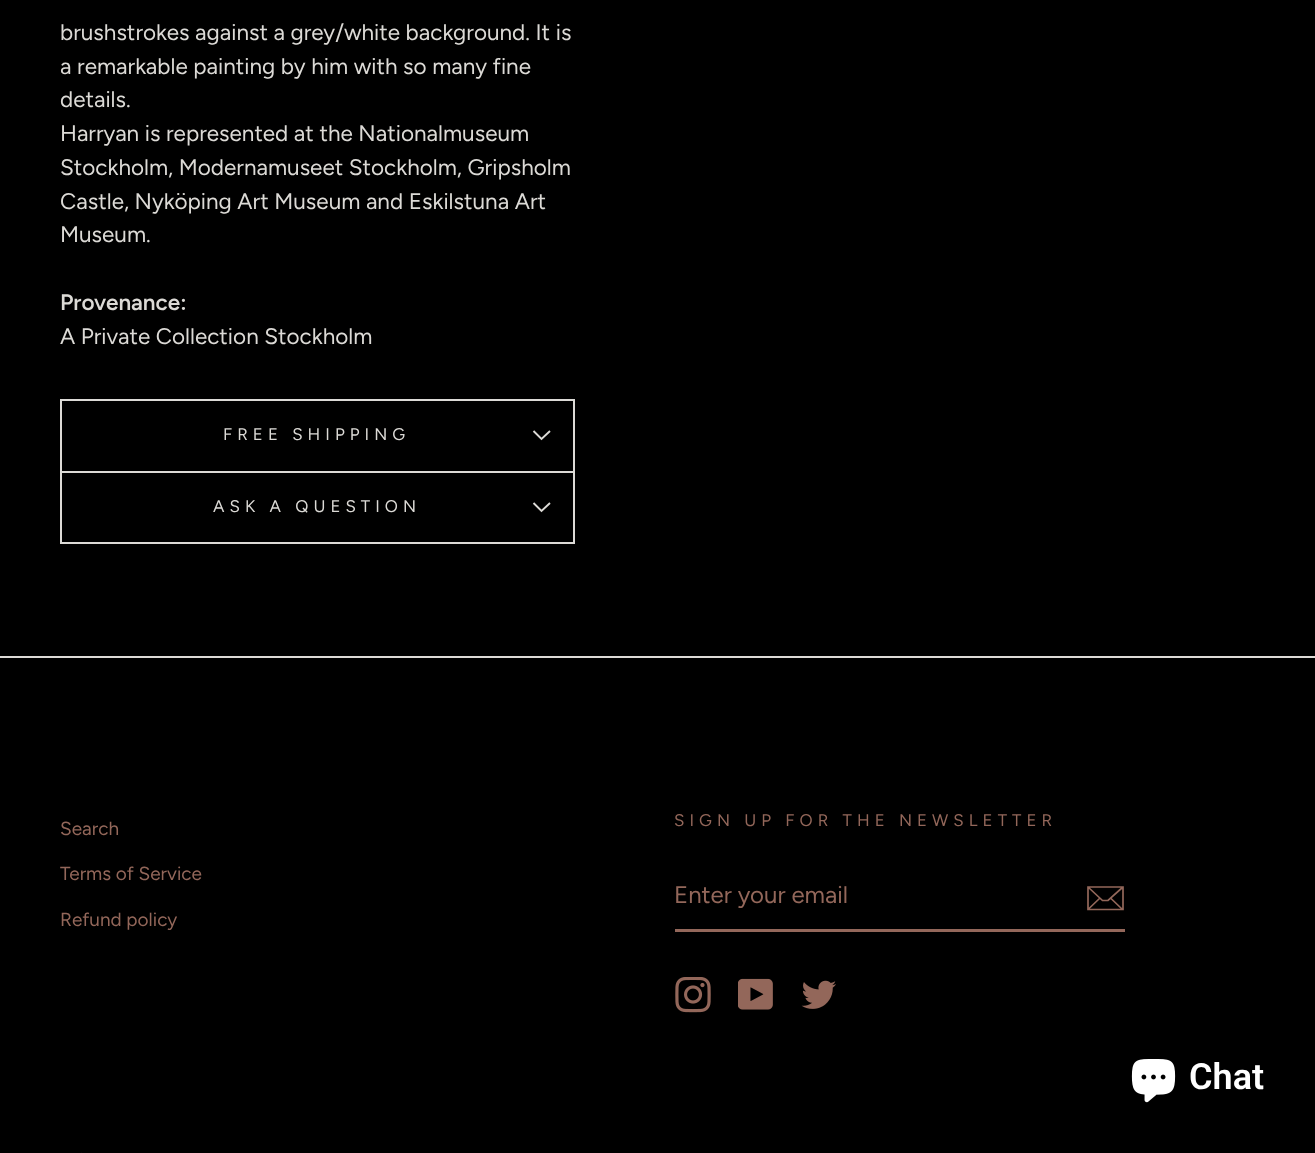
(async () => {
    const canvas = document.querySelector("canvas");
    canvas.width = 1315;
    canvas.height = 1153;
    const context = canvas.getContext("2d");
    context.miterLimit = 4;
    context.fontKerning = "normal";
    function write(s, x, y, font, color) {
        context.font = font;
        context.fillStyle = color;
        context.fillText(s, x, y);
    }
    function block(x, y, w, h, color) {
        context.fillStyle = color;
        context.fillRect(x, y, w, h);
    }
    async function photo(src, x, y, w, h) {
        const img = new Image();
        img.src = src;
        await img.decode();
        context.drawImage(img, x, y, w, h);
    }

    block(0, 0, 1315, 1153, "rgb(0, 0, 0)");
    write("brushstrokes against a grey/white background. It is", 60, 40, "22.5px Figtree", "rgb(220, 218, 214)");
    write("a remarkable painting by him with so many fine", 60, 74, "22.5px Figtree", "rgb(220, 218, 214)");
    write("details.", 60, 107, "22.5px Figtree", "rgb(220, 218, 214)");
    write("Harryan is represented at the Nationalmuseum", 60, 141, "22.5px Figtree", "rgb(220, 218, 214)");
    write("Stockholm, Modernamuseet Stockholm, Gripsholm", 60, 175, "22.5px Figtree", "rgb(220, 218, 214)");
    write("Castle, Nyköping Art Museum and Eskilstuna Art", 60, 209, "22.5px Figtree", "rgb(220, 218, 214)");
    write("Museum.", 60, 242, "22.5px Figtree", "rgb(220, 218, 214)");
    write("Provenance:", 60, 310, "600 22.5px Figtree", "rgb(220, 218, 214)");
    write("A Private Collection Stockholm", 60, 344, "22.5px Figtree", "rgb(220, 218, 214)");
    block(60, 542, 515, 2, "rgb(220, 218, 214)");
    block(60, 399, 515, 2, "rgb(220, 218, 214)");
    block(573, 399, 2, 72, "rgb(220, 218, 214)");
    block(60, 399, 2, 72, "rgb(220, 218, 214)");
    context.letterSpacing = "5.05px";
    write("FREE SHIPPING", 223, 440, "16.9px Figtree", "rgb(220, 218, 214)");
    context.beginPath();
    context.moveTo(533.5, 431);
    context.lineTo(541.5, 439);
    context.lineTo(550, 431);
    context.strokeStyle = "rgb(220, 218, 214)";
    context.lineWidth = 1.9;
    context.stroke();
    block(60, 471, 515, 2, "rgb(220, 218, 214)");
    block(573, 471, 2, 71, "rgb(220, 218, 214)");
    block(60, 471, 2, 71, "rgb(220, 218, 214)");
    write("ASK A QUESTION", 213, 512, "16.9px Figtree", "rgb(220, 218, 214)");
    context.beginPath();
    context.moveTo(533.5, 503);
    context.lineTo(541.5, 511);
    context.lineTo(550, 503);
    context.stroke();
    block(0, 656, 1315, 2, "rgb(220, 218, 214)");
    context.letterSpacing = "0px";
    write("Search", 60, 835, "19px Figtree", "rgb(147, 103, 90)");
    write("Terms of Service", 60, 880, "19px Figtree", "rgb(147, 103, 90)");
    write("Refund policy", 60, 926, "19px Figtree", "rgb(147, 103, 90)");
    context.letterSpacing = "5.05px";
    write("SIGN UP FOR THE NEWSLETTER", 674, 826, "16.9px Figtree", "rgb(147, 103, 90)");
    block(675, 929, 450, 3, "rgb(147, 103, 90)");
    context.letterSpacing = "0px";
    write("Enter your email", 674, 903, "24px Figtree", "rgb(147, 103, 90)");
    context.beginPath();
    context.moveTo(1123, 909.5);
    context.lineTo(1088, 909.5);
    context.lineTo(1088, 887);
    context.lineTo(1123, 887);
    context.closePath();
    context.moveTo(1088, 887);
    context.lineTo(1102.5, 900.5);
    context.lineTo(1108, 900.5);
    context.lineTo(1123, 887);
    context.moveTo(1100, 898);
    context.lineTo(1088.5, 909);
    context.moveTo(1122.5, 909.5);
    context.lineTo(1110.5, 898);
    context.strokeStyle = "rgb(147, 103, 90)";
    context.lineWidth = 1.7;
    context.stroke();
    await photo("media/1.png", 675, 977, 36, 36);
    await photo("media/2.png", 738, 978, 35, 32);
    await photo("media/3.png", 801, 980, 35, 29);
    block(81, 1152, 1, 1, "rgb(5, 5, 5)");
    await photo("media/4.png", 1131, 1059, 45, 44);
    write("Chat", 1189, 1089, "600 36px Roboto", "rgb(255, 255, 255)");
})();
